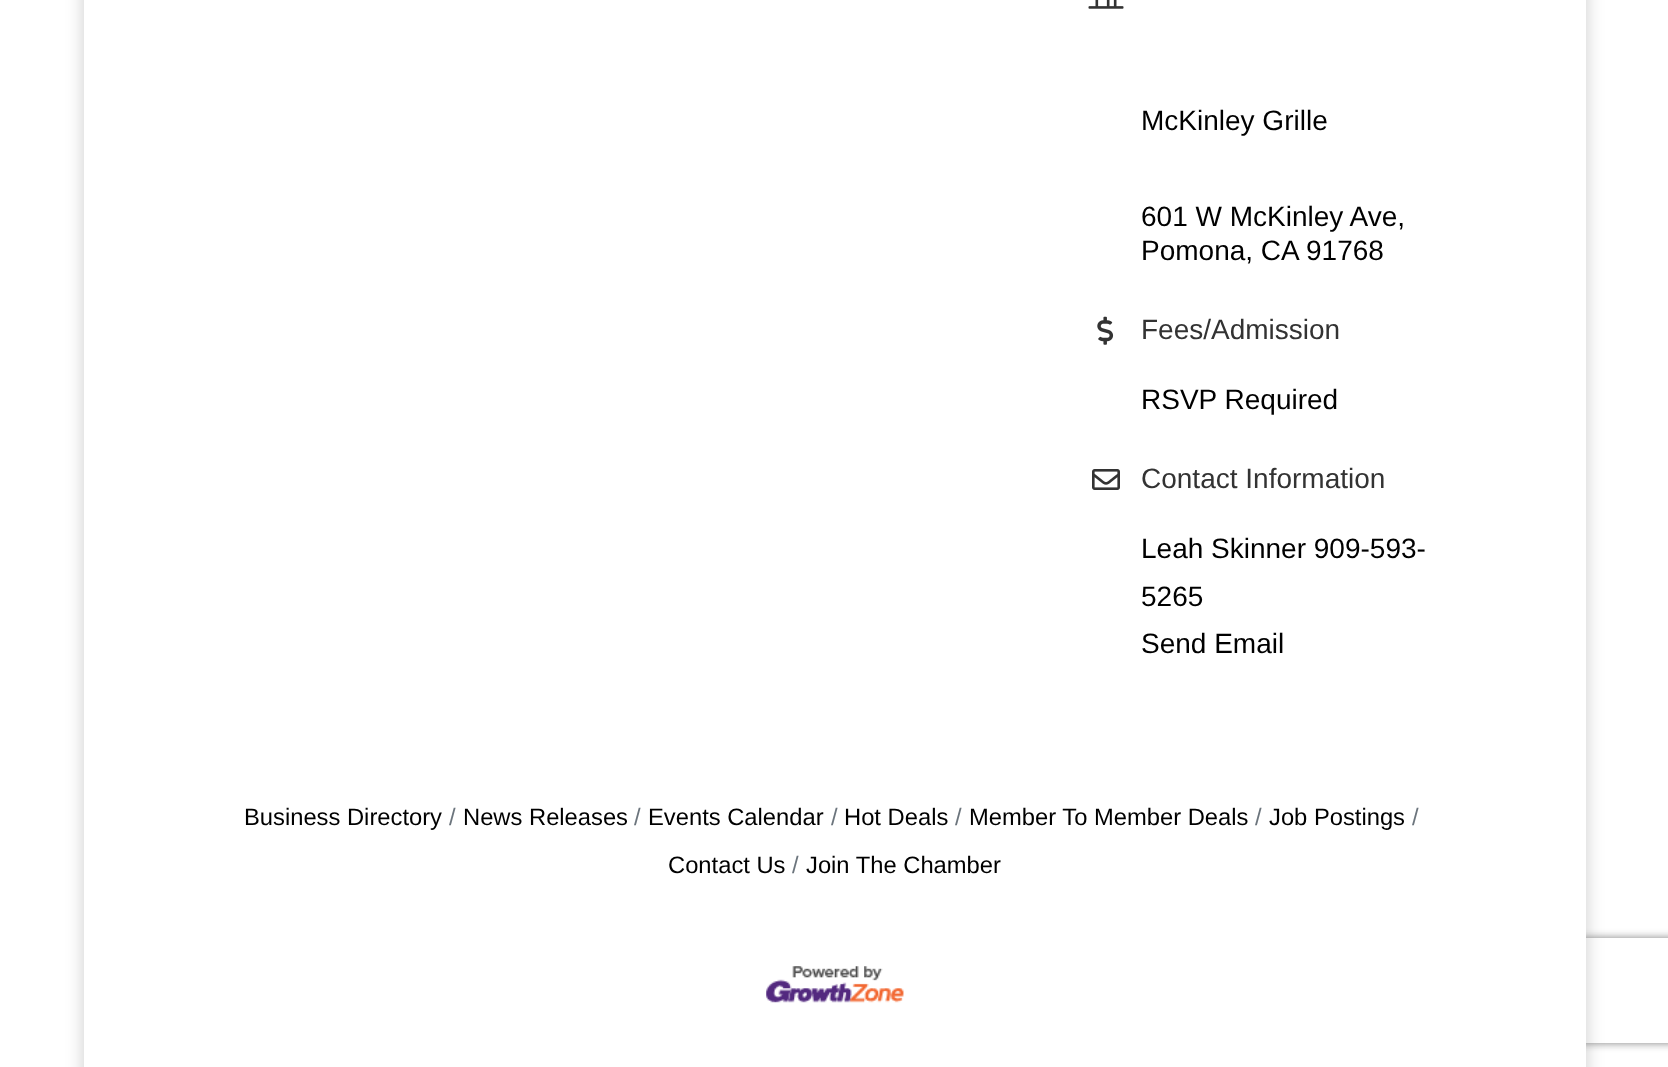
(async () => {
    const canvas = document.querySelector("canvas");
    canvas.width = 1668;
    canvas.height = 1067;
    const context = canvas.getContext("2d");
    context.miterLimit = 4;
    context.fontKerning = "normal";
    function write(s, x, y, font, color) {
        context.font = font;
        context.fillStyle = color;
        context.fillText(s, x, y);
    }
    function block(x, y, w, h, color) {
        context.fillStyle = color;
        context.fillRect(x, y, w, h);
    }
    async function photo(src, x, y, w, h) {
        const img = new Image();
        img.src = src;
        await img.decode();
        context.drawImage(img, x, y, w, h);
    }

    block(0, 0, 1668, 1067, "rgb(255, 255, 255)");
    context.fillStyle = "rgba(0, 0, 0, 0.2)";
    context.filter = "blur(9px)";
    context.beginPath();
    context.rect(84, -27, 1502, 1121);
    context.fill();
    context.filter = "none";
    context.save();
    context.beginPath();
    context.moveTo(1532, 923);
    context.lineTo(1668, 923);
    context.lineTo(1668, 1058);
    context.lineTo(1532, 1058);
    context.closePath();
    context.moveTo(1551, 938);
    context.lineTo(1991, 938);
    context.bezierCurveTo(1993, 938, 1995, 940, 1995, 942);
    context.lineTo(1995, 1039);
    context.bezierCurveTo(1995, 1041, 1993, 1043, 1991, 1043);
    context.lineTo(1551, 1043);
    context.bezierCurveTo(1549, 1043, 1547, 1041, 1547, 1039);
    context.lineTo(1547, 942);
    context.bezierCurveTo(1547, 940, 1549, 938, 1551, 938);
    context.closePath();
    context.clip("evenodd");
    context.fillStyle = "rgb(128, 128, 128)";
    context.filter = "blur(4.5px)";
    context.beginPath();
    context.roundRect(1547, 938, 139, 105, 4);
    context.fill();
    context.filter = "none";
    context.restore();
    block(84, 0, 1502, 1067, "rgb(255, 255, 255)");
    await photo("media/1.png", 1088, 0, 36, 9);
    write("McKinley Grille", 1141, 130, "28px Liberation Sans", "rgb(0, 0, 0)");
    write("601 W McKinley Ave,", 1141, 226, "28px Liberation Sans", "rgb(0, 0, 0)");
    write("Pomona, CA", 1141, 260, "28px Liberation Sans", "rgb(0, 0, 0)");
    write("91768", 1306, 260, "28px Liberation Sans", "rgb(0, 0, 0)");
    await photo("media/2.png", 1097, 316, 17, 29);
    write("Fees/Admission", 1141, 339, "28px Liberation Sans", "rgb(51, 51, 51)");
    write("RSVP Required", 1141, 409, "28px Liberation Sans", "rgb(0, 0, 0)");
    await photo("media/3.png", 1092, 469, 28, 21);
    write("Contact Information", 1141, 488, "28px Liberation Sans", "rgb(51, 51, 51)");
    write("Leah Skinner 909-593-", 1141, 558, "28px Liberation Sans", "rgb(0, 0, 0)");
    write("5265", 1141, 606, "28px Liberation Sans", "rgb(0, 0, 0)");
    write("Send Email", 1141, 653, "28px Liberation Sans", "rgb(0, 0, 0)");
    write("Business Directory", 244, 825, "23.75px Liberation Sans", "rgb(0, 0, 0)");
    write("/", 449, 825, "23.75px Liberation Sans", "rgb(108, 117, 125)");
    write("News Releases", 463, 825, "23.75px Liberation Sans", "rgb(0, 0, 0)");
    write("/", 634, 825, "23.75px Liberation Sans", "rgb(108, 117, 125)");
    write("Events Calendar", 648, 825, "23.75px Liberation Sans", "rgb(0, 0, 0)");
    write("/", 1412, 825, "23.75px Liberation Sans", "rgb(108, 117, 125)");
    write("Contact Us", 668, 873, "23.75px Liberation Sans", "rgb(0, 0, 0)");
    write("/", 831, 825, "23.75px Liberation Sans", "rgb(108, 117, 125)");
    write("Hot Deals", 844, 825, "23.75px Liberation Sans", "rgb(0, 0, 0)");
    write("/", 955, 825, "23.75px Liberation Sans", "rgb(108, 117, 125)");
    write("Member To Member Deals", 969, 825, "23.75px Liberation Sans", "rgb(0, 0, 0)");
    write("/", 1255, 825, "23.75px Liberation Sans", "rgb(108, 117, 125)");
    write("Job Postings", 1269, 825, "23.75px Liberation Sans", "rgb(0, 0, 0)");
    write("/", 792, 873, "23.75px Liberation Sans", "rgb(108, 117, 125)");
    write("Join The Chamber", 806, 873, "23.75px Liberation Sans", "rgb(0, 0, 0)");
    await photo("media/4.png", 766, 966, 138, 37);
})();
